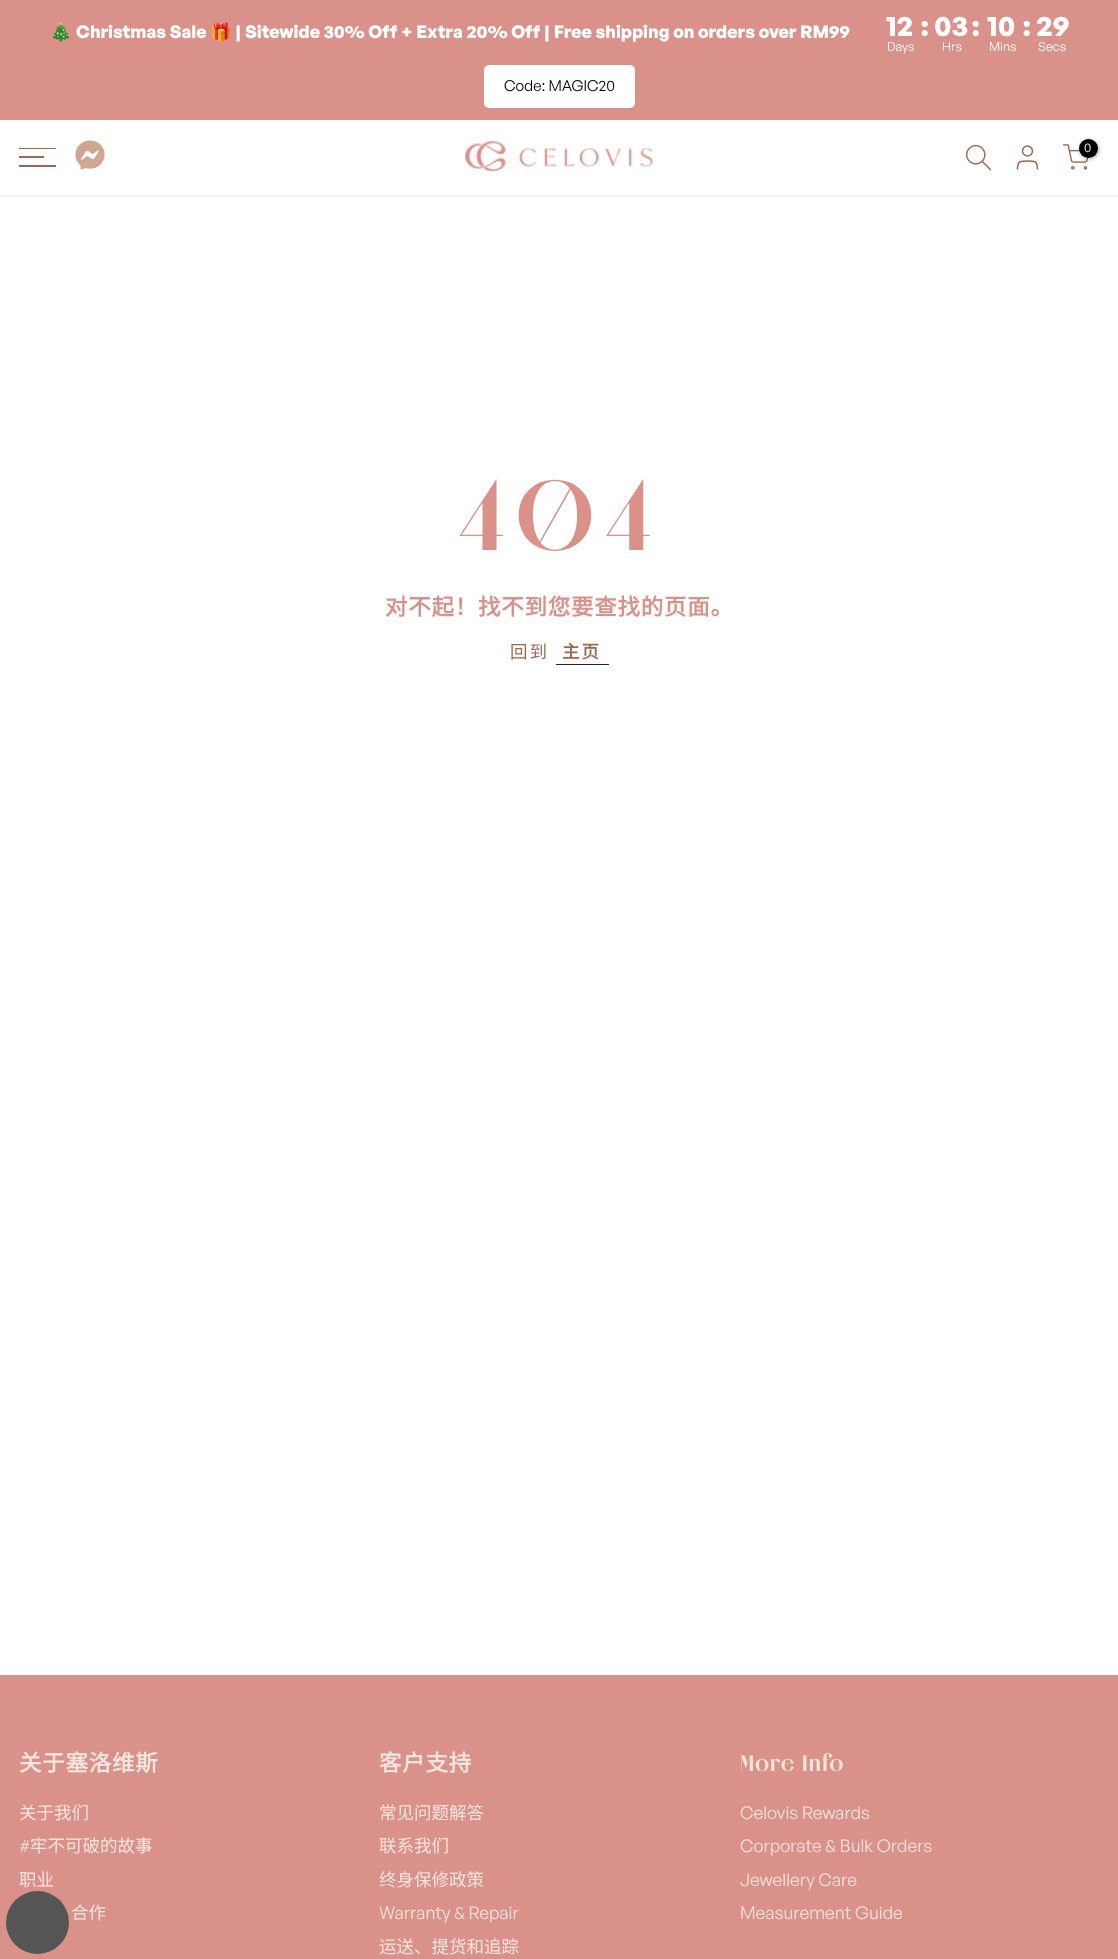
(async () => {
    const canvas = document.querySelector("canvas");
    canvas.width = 1118;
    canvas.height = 1959;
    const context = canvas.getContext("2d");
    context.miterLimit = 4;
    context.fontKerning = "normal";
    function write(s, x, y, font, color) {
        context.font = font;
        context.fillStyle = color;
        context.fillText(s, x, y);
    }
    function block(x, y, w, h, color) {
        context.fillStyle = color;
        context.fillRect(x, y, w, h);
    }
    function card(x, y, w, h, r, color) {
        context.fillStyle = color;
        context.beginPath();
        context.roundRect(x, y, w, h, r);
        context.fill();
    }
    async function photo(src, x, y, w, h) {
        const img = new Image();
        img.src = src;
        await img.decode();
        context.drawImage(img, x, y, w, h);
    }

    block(0, 0, 1118, 1959, "rgb(255, 255, 255)");
    context.save();
    context.beginPath();
    context.rect(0, 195, 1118, 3);
    context.clip();
    context.fillStyle = "rgba(0, 0, 0, 0.1)";
    context.filter = "blur(2px)";
    context.beginPath();
    context.rect(0, 1, 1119, 195);
    context.fill();
    context.filter = "none";
    context.restore();
    block(0, 0, 1118, 120, "rgb(218, 145, 137)");
    write("🎄", 50, 38, "bold 17.5px Noto Color Emoji", "rgb(255, 255, 255)");
    write("Christmas Sale", 76, 38, "bold 17.5px General Sans", "rgb(255, 255, 255)");
    write("🎁", 210, 38, "bold 17.5px Noto Color Emoji", "rgb(255, 255, 255)");
    write("| Sitewide 30% Off + Extra 20% Off | Free shipping on orders over RM99", 235, 38, "bold 17.5px General Sans", "rgb(255, 255, 255)");
    write("12", 886, 36, "bold 28px General Sans", "rgb(255, 255, 255)");
    write(":", 921, 36, "bold 28px General Sans", "rgb(255, 255, 255)");
    write("03", 934, 36, "bold 28px General Sans", "rgb(255, 255, 255)");
    write(":", 972, 36, "bold 28px General Sans", "rgb(255, 255, 255)");
    write("10", 987, 36, "bold 28px General Sans", "rgb(255, 255, 255)");
    write(": 29", 1023, 36, "bold 28px General Sans", "rgb(255, 255, 255)");
    write("Days", 887, 51, "12.5px General Sans", "rgb(255, 255, 255)");
    write("Hrs", 942, 51, "12.5px General Sans", "rgb(255, 255, 255)");
    write("Mins", 989, 51, "12.5px General Sans", "rgb(255, 255, 255)");
    write("Secs", 1038, 51, "12.5px General Sans", "rgb(255, 255, 255)");
    card(484, 65, 151, 43, 5, "rgb(255, 255, 255)");
    write("Code: MAGIC20", 504, 91, "15px General Sans", "rgb(0, 0, 0)");
    block(19, 148, 37, 1, "rgb(158, 104, 80)");
    block(19, 156, 25, 2, "rgb(158, 104, 80)");
    block(19, 165, 37, 2, "rgb(158, 104, 80)");
    await photo("media/1.png", 75, 140, 30, 30);
    await photo("media/2.png", 465, 141, 188, 31);
    await photo("media/3.png", 965, 144, 27, 27);
    context.beginPath();
    context.arc(1027.5, 151, 5, 0, Math.PI * 2);
    context.strokeStyle = "rgb(158, 104, 80)";
    context.lineWidth = 1.5;
    context.stroke();
    context.beginPath();
    context.moveTo(1037.5, 169);
    context.bezierCurveTo(1037.5, 161, 1034.5, 161, 1027.5, 161);
    context.bezierCurveTo(1020.5, 161, 1017.5, 161, 1017.5, 169);
    context.lineCap = "round";
    context.lineJoin = "round";
    context.stroke();
    await photo("media/4.png", 1063, 144, 26, 26);
    context.fillStyle = "rgba(0, 0, 0, 0.3)";
    context.filter = "blur(2px)";
    context.beginPath();
    context.roundRect(1080, 140, 19, 19, 9.5);
    context.fill();
    context.filter = "none";
    context.fillStyle = "rgb(0, 0, 0)";
    context.beginPath();
    context.arc(1088.5, 148.5, 9.5, 0, Math.PI * 2);
    context.fill();
    write("0", 1084, 152, "12.5px General Sans", "rgb(255, 255, 255)");
    context.letterSpacing = "10px";
    write("404", 458, 550, "bold 100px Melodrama", "rgb(218, 145, 137)");
    context.letterSpacing = "0.75px";
    write("对不起！找不到您要查找的页面。", 385, 615, "bold 22.5px Noto Sans CJK SC", "rgb(218, 145, 137)");
    context.letterSpacing = "2px";
    write("回到", 510, 658, "17.5px Noto Sans CJK SC", "rgb(158, 104, 80)");
    write("主页", 562, 658, "bold 17.5px Noto Sans CJK SC", "rgb(158, 104, 80)");
    block(556, 664, 53, 1, "rgb(34, 34, 34)");
    block(0, 1675, 1118, 284, "rgb(218, 145, 137)");
    context.letterSpacing = "0.75px";
    write("关于塞洛维斯", 19, 1771, "bold 22.5px Noto Sans CJK SC", "rgb(244, 228, 222)");
    context.letterSpacing = "0px";
    write("关于我们", 19, 1819, "17.5px Noto Sans CJK SC", "rgb(244, 228, 222)");
    write("#", 19, 1852, "17.5px General Sans", "rgb(244, 228, 222)");
    write("牢不可破的故事", 30, 1852, "17.5px Noto Sans CJK SC", "rgb(244, 228, 222)");
    write("职业", 19, 1886, "17.5px Noto Sans CJK SC", "rgb(244, 228, 222)");
    write("合作", 71, 1919, "17.5px Noto Sans CJK SC", "rgb(244, 228, 222)");
    context.letterSpacing = "0.75px";
    write("客户支持", 379, 1771, "bold 22.5px Noto Sans CJK SC", "rgb(244, 228, 222)");
    context.letterSpacing = "0px";
    write("常见问题解答", 379, 1819, "17.5px Noto Sans CJK SC", "rgb(244, 228, 222)");
    write("联系我们", 379, 1852, "17.5px Noto Sans CJK SC", "rgb(244, 228, 222)");
    write("终身保修政策", 379, 1886, "17.5px Noto Sans CJK SC", "rgb(244, 228, 222)");
    write("Warranty & Repair", 379, 1919, "17.5px General Sans", "rgb(244, 228, 222)");
    write("运送、提货和追踪", 379, 1953, "17.5px Noto Sans CJK SC", "rgb(244, 228, 222)");
    context.letterSpacing = "0.75px";
    write("More Info", 740, 1771, "bold 22.5px Melodrama", "rgb(244, 228, 222)");
    context.letterSpacing = "0px";
    write("Celovis Rewards", 740, 1819, "17.5px General Sans", "rgb(244, 228, 222)");
    write("Corporate & Bulk Orders", 740, 1852, "17.5px General Sans", "rgb(244, 228, 222)");
    write("Jewellery Care", 740, 1886, "17.5px General Sans", "rgb(244, 228, 222)");
    write("Measurement Guide", 740, 1919, "17.5px General Sans", "rgb(244, 228, 222)");
    context.fillStyle = "rgb(85, 85, 85)";
    context.beginPath();
    context.arc(37.5, 1922.5, 31.5, 0, Math.PI * 2);
    context.fill();
})();
